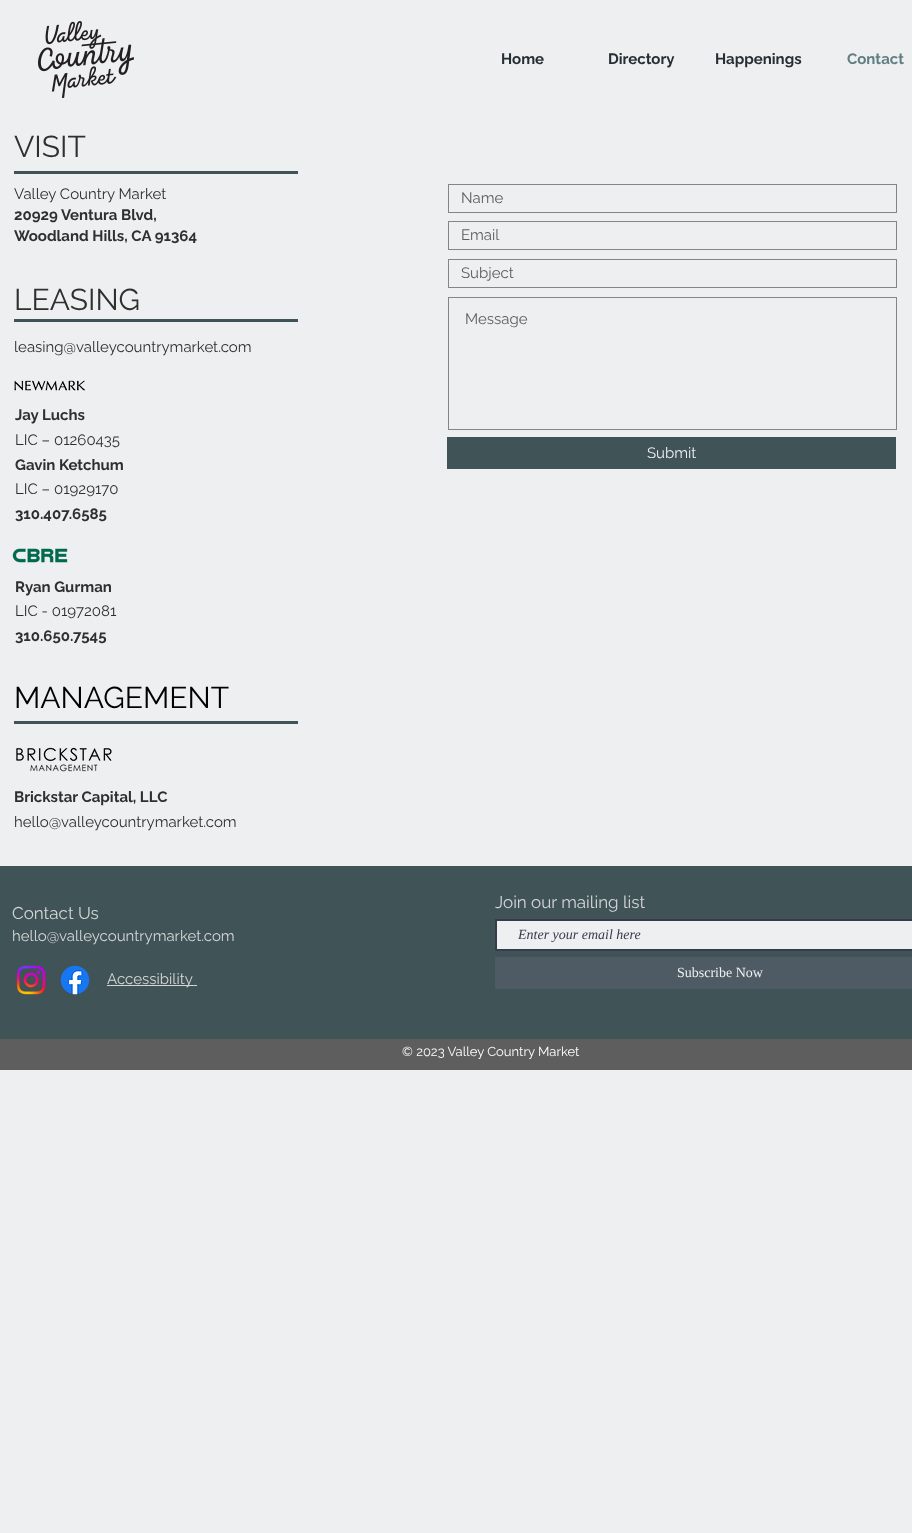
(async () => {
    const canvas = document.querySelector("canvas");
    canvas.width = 912;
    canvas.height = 1533;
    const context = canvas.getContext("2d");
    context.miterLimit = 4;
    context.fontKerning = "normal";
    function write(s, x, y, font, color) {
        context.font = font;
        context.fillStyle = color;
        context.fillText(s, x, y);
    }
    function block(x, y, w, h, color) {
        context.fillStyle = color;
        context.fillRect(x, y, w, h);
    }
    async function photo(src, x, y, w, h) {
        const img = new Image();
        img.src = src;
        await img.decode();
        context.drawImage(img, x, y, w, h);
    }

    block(0, 0, 912, 1533, "rgb(237, 239, 240)");
    await photo("media/1.png", 38, 21, 96, 77);
    write("Home", 501, 64, "bold 15px Raleway", "rgb(39, 46, 50)");
    write("Directory", 608, 64, "bold 15px Raleway", "rgb(39, 46, 50)");
    write("Happenings", 715, 64, "bold 15px Raleway", "rgb(39, 46, 50)");
    write("Contact", 847, 64, "bold 15px Raleway", "rgb(96, 125, 130)");
    write("VISIT", 14, 157, "30px Raleway", "rgb(47, 47, 47)");
    write("Valley Country Market", 14, 199, "15px Raleway", "rgb(47, 47, 47)");
    write("20929 Ventura Blvd,", 14, 220, "bold 15px Raleway", "rgb(47, 47, 47)");
    write("Woodland Hills, CA 91364", 14, 241, "bold 15px Raleway", "rgb(47, 47, 47)");
    write("LEASING", 14, 310, "30px Raleway", "rgb(47, 47, 47)");
    write("leasing@valleycountrymarket.com", 14, 352, "15px Raleway", "rgb(47, 47, 47)");
    block(14, 171, 284, 3, "rgb(64, 83, 87)");
    block(14, 319, 284, 3, "rgb(64, 83, 87)");
    context.strokeStyle = "rgb(133, 133, 134)";
    context.strokeRect(448.5, 184.5, 448, 28);
    write("Name", 461, 203, "15px Raleway", "rgb(94, 94, 94)");
    context.strokeRect(448.5, 221.5, 448, 28);
    write("Email", 461, 240, "15px Raleway", "rgb(94, 94, 94)");
    context.strokeRect(448.5, 259.5, 448, 28);
    write("Subject", 461, 278, "15px Raleway", "rgb(94, 94, 94)");
    context.strokeRect(448.5, 297.5, 448, 132);
    write("Message", 465, 324, "15px Raleway", "rgb(94, 94, 94)");
    block(447, 437, 449, 32, "rgb(64, 83, 87)");
    write("Submit", 647, 458, "15px Raleway", "rgb(237, 239, 240)");
    await photo("media/2.png", 14, 380, 72, 11);
    write("Jay Luchs", 15, 420, "bold 15px Raleway", "rgb(47, 47, 47)");
    write("LIC – 01260435", 15, 445, "15px Raleway", "rgb(47, 47, 47)");
    write("Gavin Ketchum", 15, 470, "bold 15px Raleway", "rgb(47, 47, 47)");
    write("LIC – 01929170", 15, 494, "15px Raleway", "rgb(47, 47, 47)");
    write("310.407.6585", 15, 519, "bold 15px Raleway", "rgb(47, 47, 47)");
    write("Ryan Gurman", 15, 592, "bold 15px Raleway", "rgb(47, 47, 47)");
    write("LIC - 01972081", 15, 616, "15px Raleway", "rgb(47, 47, 47)");
    write("310.650.7545", 15, 641, "bold 15px Raleway", "rgb(47, 47, 47)");
    await photo("media/3.png", 12, 548, 56, 15);
    write("MANAGEMENT", 14, 708, "30px Raleway", "rgb(0, 0, 0)");
    block(14, 721, 284, 3, "rgb(64, 83, 87)");
    await photo("media/4.png", 16, 747, 96, 25);
    write("Brickstar Capital, LLC", 14, 802, "bold 15px Raleway", "rgb(47, 47, 47)");
    write("hello@valleycountrymarket.com", 14, 827, "15px Raleway", "rgb(47, 47, 47)");
    block(0, 866, 912, 173, "rgb(64, 83, 87)");
    write("Contact Us", 12, 919, "17px Raleway", "rgb(214, 214, 214)");
    write("hello@valleycountrymarket.com", 12, 941, "15px Raleway", "rgb(214, 214, 214)");
    write("Join our mailing list", 495, 908, "17px Raleway", "rgb(214, 214, 214)");
    context.fillStyle = "rgb(237, 239, 240)";
    context.beginPath();
    context.rect(496, 920, 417, 30);
    context.fill();
    context.strokeStyle = "rgb(55, 59, 77)";
    context.lineWidth = 2;
    context.stroke();
    write("Enter your email here", 518, 939, "italic 14px Liberation Serif", "rgb(55, 59, 77)");
    block(495, 957, 417, 32, "rgb(78, 91, 100)");
    write("Subscribe Now", 677, 977, "14px Liberation Serif", "rgb(237, 239, 240)");
    await photo("media/5.png", 16, 965, 30, 30);
    await photo("media/6.png", 60, 965, 30, 30);
    block(107, 985, 90, 1, "rgb(214, 214, 214)");
    write("Accessibility", 107, 984, "15px Raleway", "rgb(214, 214, 214)");
    block(0, 1039, 912, 31, "rgb(94, 94, 94)");
    write("© 2023 Valley Country Market", 402, 1056, "13px Raleway", "rgb(255, 255, 255)");
})();
